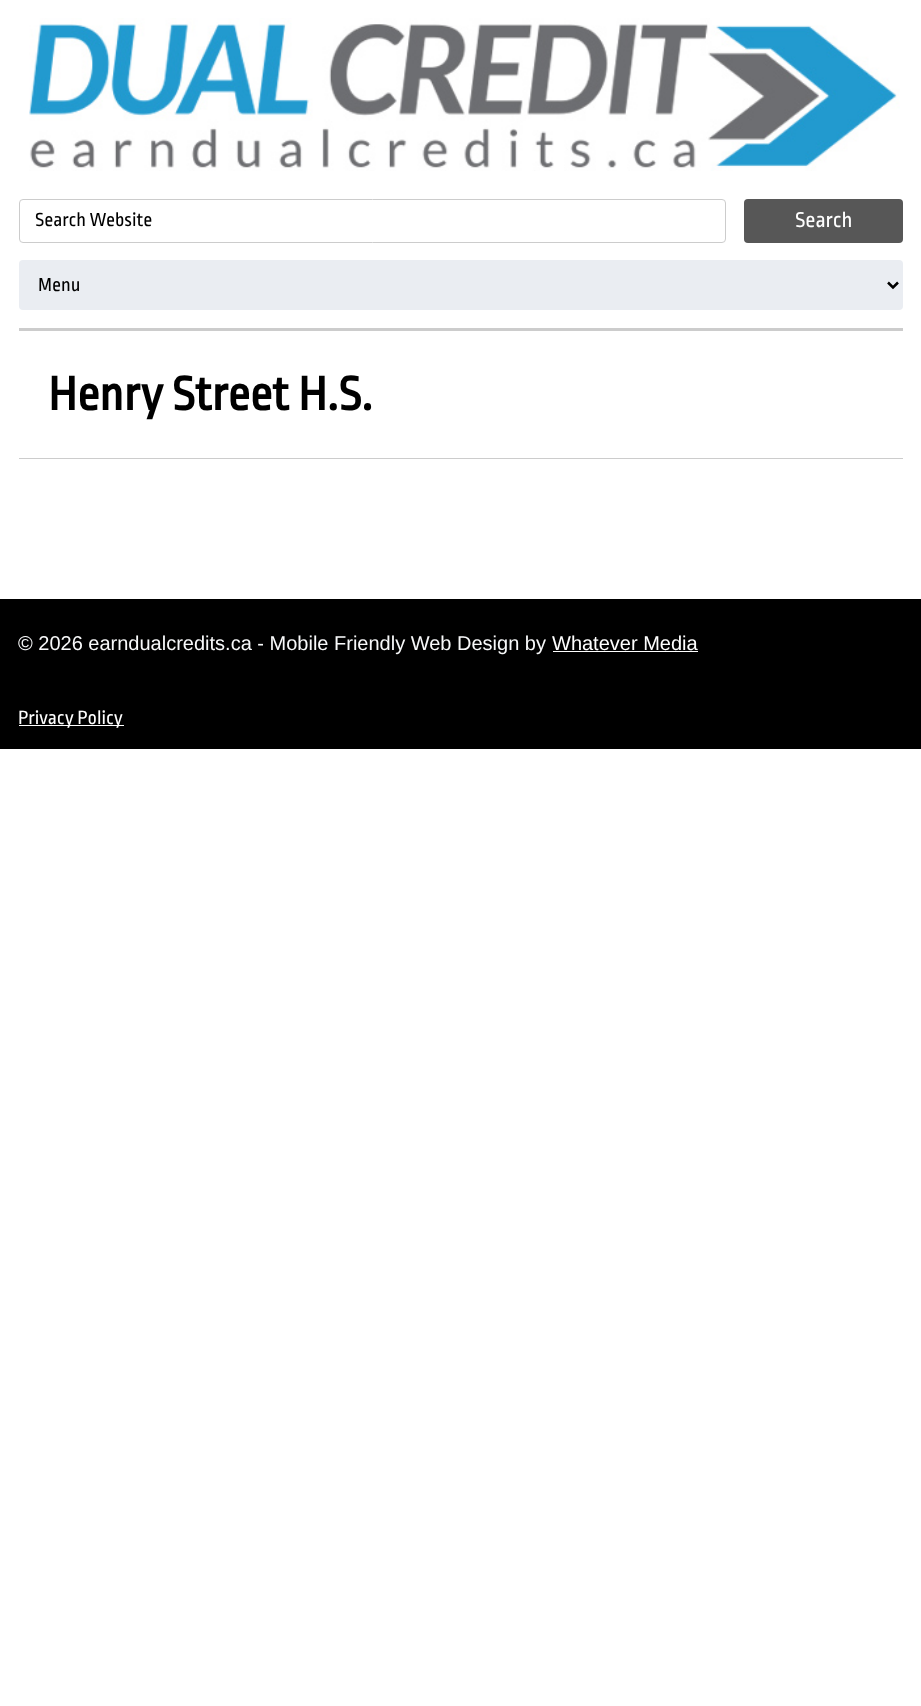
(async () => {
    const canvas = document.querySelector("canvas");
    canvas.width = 921;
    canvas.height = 1706;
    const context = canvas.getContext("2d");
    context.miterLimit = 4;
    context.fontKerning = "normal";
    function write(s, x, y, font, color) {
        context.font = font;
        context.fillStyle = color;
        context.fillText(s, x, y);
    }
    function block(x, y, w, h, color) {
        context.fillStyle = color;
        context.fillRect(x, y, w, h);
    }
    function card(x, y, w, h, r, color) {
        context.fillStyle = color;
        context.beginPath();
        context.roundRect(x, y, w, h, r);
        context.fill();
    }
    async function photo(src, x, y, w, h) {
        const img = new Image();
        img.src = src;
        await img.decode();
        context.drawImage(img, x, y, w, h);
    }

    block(0, 0, 921, 1706, "rgb(255, 255, 255)");
    await photo("media/1.png", 29, 18, 871, 153);
    context.beginPath();
    context.roundRect(19.5, 199.5, 706, 43, 3.5);
    context.strokeStyle = "rgb(204, 204, 204)";
    context.stroke();
    write("Search Website", 35, 226, "20px Ropa Sans", "rgb(0, 0, 0)");
    card(744, 199, 159, 44, 4, "rgb(87, 87, 87)");
    write("Search", 795, 227, "22.5px Ropa Sans", "rgb(255, 255, 255)");
    card(19, 260, 884, 50, 4, "rgb(234, 237, 242)");
    context.beginPath();
    context.moveTo(888, 282.5);
    context.lineTo(893, 287.5);
    context.lineTo(898, 282.5);
    context.strokeStyle = "rgb(0, 0, 0)";
    context.lineWidth = 2.5;
    context.stroke();
    write("Menu", 38, 291, "20px Ropa Sans", "rgb(0, 0, 0)");
    block(19, 328, 884, 3, "rgb(204, 204, 204)");
    block(19, 458, 884, 1, "rgb(204, 204, 204)");
    write("Henry Street H.S.", 48, 410, "bold 50px Ropa Sans", "rgb(0, 0, 0)");
    block(0, 599, 921, 150, "rgb(0, 0, 0)");
    write("© 2026 earndualcredits.ca - Mobile Friendly Web Design by", 18, 650, "20px Liberation Sans", "rgb(248, 249, 250)");
    write("Whatever Media", 552, 650, "20px Liberation Sans", "rgb(255, 255, 255)");
    block(553, 651, 145, 1, "rgb(255, 255, 255)");
    block(19, 725, 105, 1, "rgb(255, 255, 255)");
    write("Privacy Policy", 18, 724, "20px Ropa Sans", "rgb(255, 255, 255)");
})();
